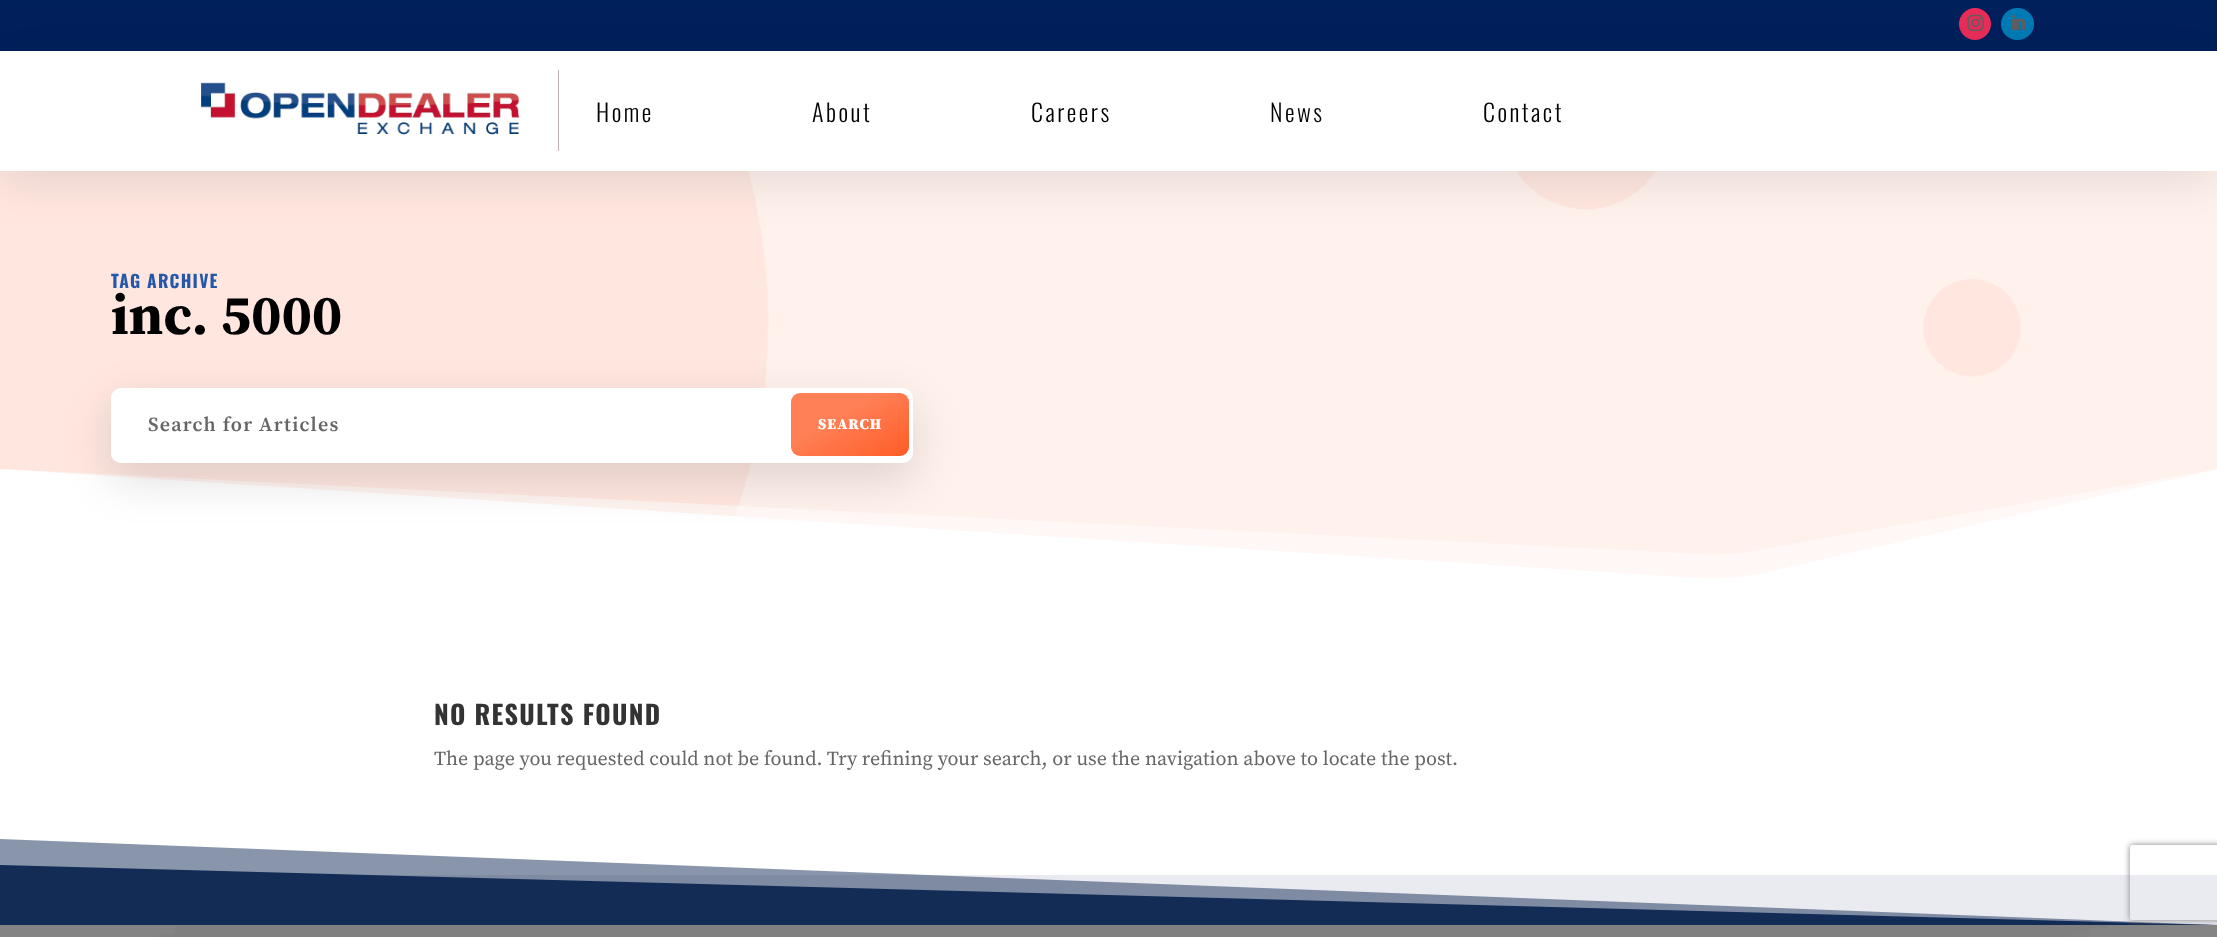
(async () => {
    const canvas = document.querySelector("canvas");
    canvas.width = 2217;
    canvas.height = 937;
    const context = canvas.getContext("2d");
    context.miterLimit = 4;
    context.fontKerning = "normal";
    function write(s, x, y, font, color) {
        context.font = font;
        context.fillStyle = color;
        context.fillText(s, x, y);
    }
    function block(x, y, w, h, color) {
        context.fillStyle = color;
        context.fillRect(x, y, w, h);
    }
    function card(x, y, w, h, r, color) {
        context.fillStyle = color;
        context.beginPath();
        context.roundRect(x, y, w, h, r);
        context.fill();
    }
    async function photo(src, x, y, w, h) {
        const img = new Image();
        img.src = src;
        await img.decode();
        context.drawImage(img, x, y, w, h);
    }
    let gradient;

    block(0, 0, 2217, 937, "rgb(234, 234, 241)");
    block(0, 0, 2217, 51, "rgb(0, 32, 92)");
    context.fillStyle = "rgb(234, 44, 89)";
    context.beginPath();
    context.arc(1975, 24, 16, 0, Math.PI * 2);
    context.fill();
    await photo("media/1.png", 1967, 14, 17, 17);
    card(2001, 8, 33, 32, 16, "rgb(0, 123, 182)");
    await photo("media/2.png", 2012, 14, 14, 16);
    await photo("media/4.png", 0, 171, 2217, 408);
    context.fillStyle = "rgba(0, 0, 0, 0.11)";
    context.filter = "blur(25px)";
    context.beginPath();
    context.rect(0, 58, 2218, 120);
    context.fill();
    context.filter = "none";
    block(0, 51, 2217, 120, "rgb(255, 255, 255)");
    block(558, 70, 1, 81, "rgb(189, 177, 177)");
    await photo("media/3.png", 201, 82, 319, 53);
    context.letterSpacing = "2.5px";
    write("Home", 596, 122, "300 24px Oswald", "rgb(0, 0, 0)");
    write("About", 812, 122, "300 24px Oswald", "rgb(0, 0, 0)");
    write("Careers", 1031, 122, "300 24px Oswald", "rgb(0, 0, 0)");
    write("News", 1270, 122, "300 24px Oswald", "rgb(0, 0, 0)");
    write("Contact", 1483, 122, "300 24px Oswald", "rgb(0, 0, 0)");
    block(0, 594, 2217, 281, "rgb(255, 255, 255)");
    context.letterSpacing = "1.25px";
    write("TAG ARCHIVE", 111, 288, "bold 17.5px Oswald", "rgb(37, 88, 171)");
    context.letterSpacing = "0px";
    write("inc. 5000", 111, 334, "bold 56.25px Source Serif Pro", "rgb(0, 0, 0)");
    context.fillStyle = "rgba(255, 255, 255, 0.5)";
    context.beginPath();
    context.moveTo(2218, 469);
    context.lineTo(1757, 550);
    context.bezierCurveTo(1740, 554, 1721, 555, 1703, 554);
    context.lineTo(0, 469);
    context.lineTo(0, 594);
    context.lineTo(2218, 594);
    context.closePath();
    context.fill();
    context.fillStyle = "rgb(255, 255, 255)";
    context.beginPath();
    context.moveTo(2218, 469);
    context.lineTo(1763, 573);
    context.bezierCurveTo(1742, 578, 1719, 579, 1696, 578);
    context.lineTo(0, 469);
    context.lineTo(0, 594);
    context.lineTo(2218, 594);
    context.closePath();
    context.fill();
    context.fillStyle = "rgba(0, 0, 0, 0.13)";
    context.filter = "blur(23px)";
    context.beginPath();
    context.roundRect(111, 404, 802, 75, 10);
    context.fill();
    context.filter = "none";
    card(111, 388, 802, 75, 10, "rgb(255, 255, 255)");
    card(111, 388, 670, 75, 10, "rgb(255, 255, 255)");
    context.letterSpacing = "1.25px";
    write("Search for Articles", 148, 431, "600 20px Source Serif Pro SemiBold", "rgb(102, 102, 102)");
    gradient = context.createLinearGradient(822, 376, 877, 474);
    gradient.addColorStop(0.38, "rgb(255, 128, 87)");
    gradient.addColorStop(1, "rgb(255, 92, 38)");
    context.fillStyle = gradient;
    context.beginPath();
    context.roundRect(791, 393, 118, 63, 9);
    context.fill();
    context.letterSpacing = "1px";
    write("SEARCH", 818, 429, "900 15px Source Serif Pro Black", "rgb(255, 255, 255)");
    context.letterSpacing = "1.25px";
    write("NO RESULTS FOUND", 434, 725, "bold 26.25px Oswald", "rgb(51, 51, 51)");
    context.letterSpacing = "0px";
    write("The page you requested could not be found. Try refining your search, or use the navigation above to locate the post.", 434, 765, "20px Source Serif Pro", "rgb(102, 102, 102)");
    context.fillStyle = "rgba(19, 44, 86, 0.5)";
    context.beginPath();
    context.moveTo(0, 839);
    context.lineTo(0, 925);
    context.lineTo(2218, 925);
    context.closePath();
    context.fill();
    context.fillStyle = "rgb(19, 44, 86)";
    context.beginPath();
    context.moveTo(0, 865);
    context.lineTo(0, 925);
    context.lineTo(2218, 925);
    context.closePath();
    context.fill();
    await photo("media/5.png", 0, 925, 2217, 12);
    context.save();
    context.beginPath();
    context.moveTo(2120, 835);
    context.lineTo(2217, 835);
    context.lineTo(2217, 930);
    context.lineTo(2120, 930);
    context.closePath();
    context.moveTo(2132.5, 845);
    context.lineTo(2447.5, 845);
    context.bezierCurveTo(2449, 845, 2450, 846, 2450, 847.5);
    context.lineTo(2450, 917.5);
    context.bezierCurveTo(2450, 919, 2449, 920, 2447.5, 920);
    context.lineTo(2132.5, 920);
    context.bezierCurveTo(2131, 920, 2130, 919, 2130, 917.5);
    context.lineTo(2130, 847.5);
    context.bezierCurveTo(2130, 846, 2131, 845, 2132.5, 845);
    context.closePath();
    context.clip("evenodd");
    context.fillStyle = "rgb(128, 128, 128)";
    context.filter = "blur(3px)";
    context.beginPath();
    context.roundRect(2130, 845, 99, 75, 2.5);
    context.fill();
    context.filter = "none";
    context.restore();
})();
